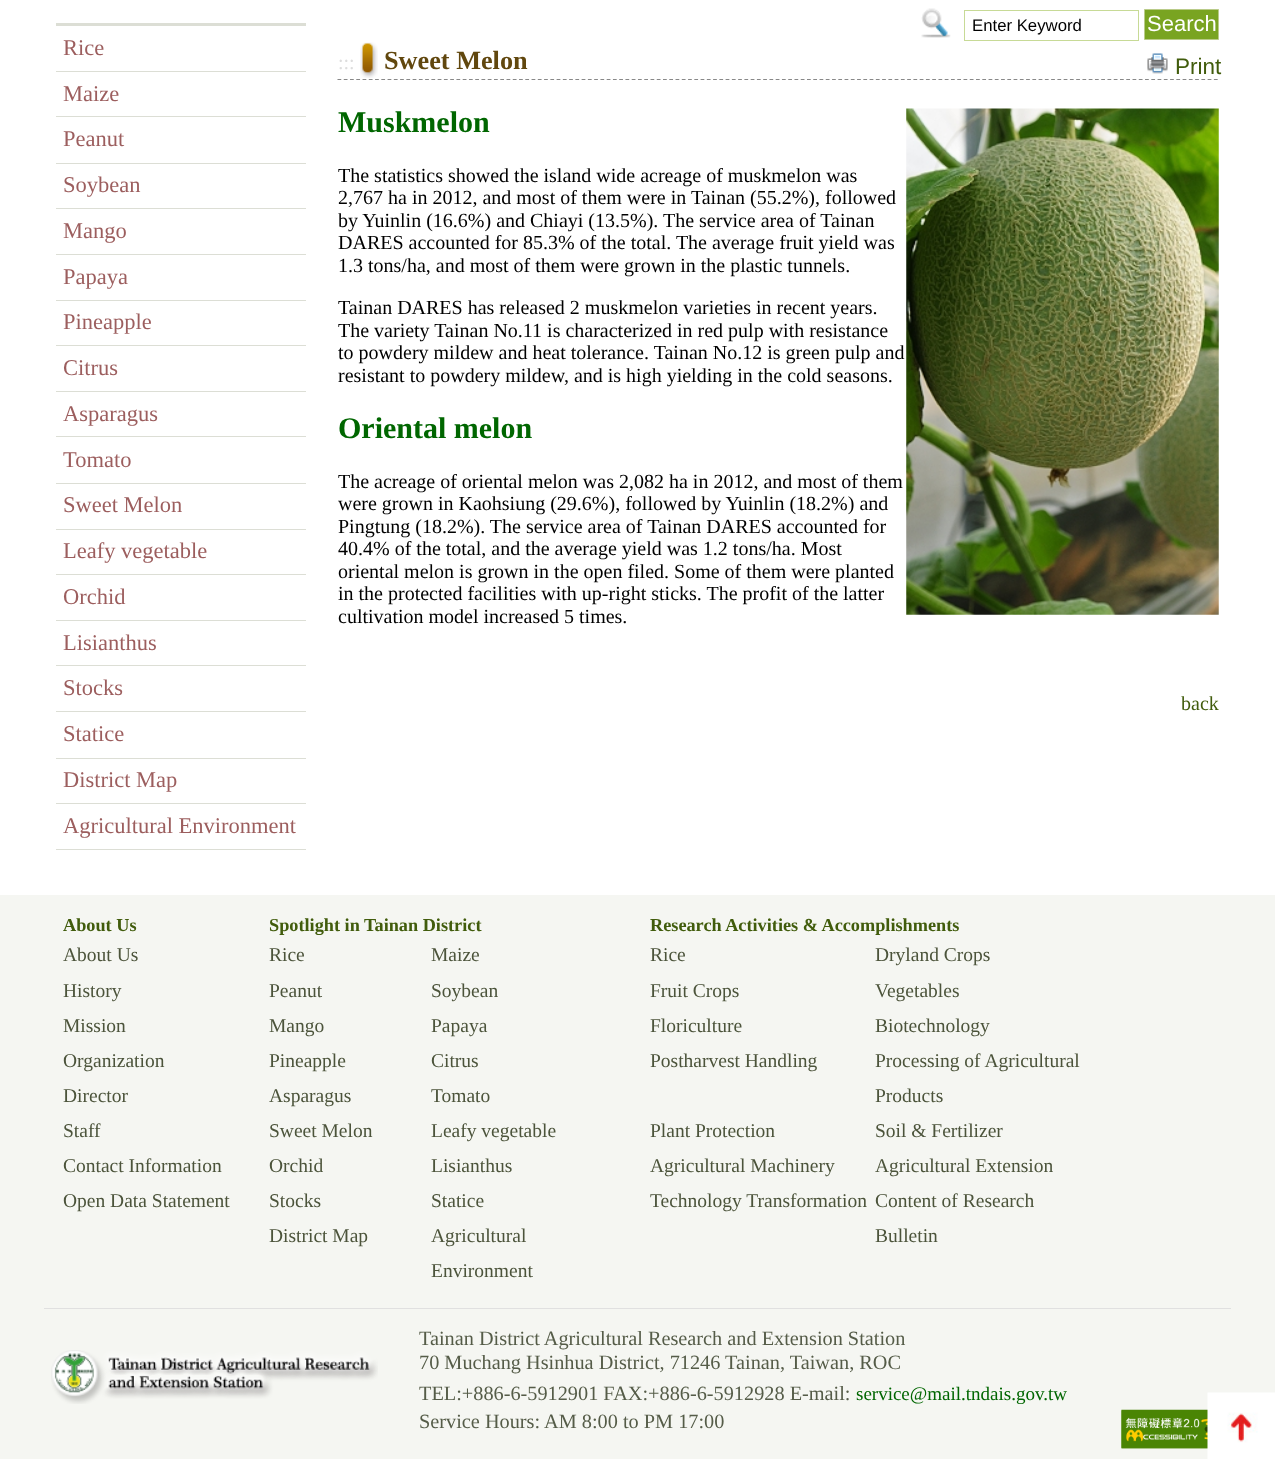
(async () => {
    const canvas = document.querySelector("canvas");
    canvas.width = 1275;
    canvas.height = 1459;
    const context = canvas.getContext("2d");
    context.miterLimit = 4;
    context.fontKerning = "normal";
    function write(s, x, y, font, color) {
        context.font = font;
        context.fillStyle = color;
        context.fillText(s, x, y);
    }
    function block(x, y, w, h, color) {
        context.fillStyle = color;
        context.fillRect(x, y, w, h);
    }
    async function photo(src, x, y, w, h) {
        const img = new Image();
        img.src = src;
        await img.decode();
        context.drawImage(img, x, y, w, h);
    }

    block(0, 0, 1275, 1459, "rgb(255, 255, 255)");
    block(56, 23, 250, 3, "rgb(220, 222, 213)");
    block(56, 71, 250, 1, "rgb(220, 222, 213)");
    write("Rice", 63, 55, "22.5px Liberation Serif", "rgb(156, 94, 94)");
    block(56, 116, 250, 1, "rgb(220, 222, 213)");
    write("Maize", 63, 101, "22.5px Liberation Serif", "rgb(156, 94, 94)");
    block(56, 163, 250, 1, "rgb(220, 222, 213)");
    write("Peanut", 63, 146, "22.5px Liberation Serif", "rgb(156, 94, 94)");
    block(56, 208, 250, 1, "rgb(220, 222, 213)");
    write("Soybean", 63, 192, "22.5px Liberation Serif", "rgb(156, 94, 94)");
    block(56, 254, 250, 1, "rgb(220, 222, 213)");
    write("Mango", 63, 238, "22.5px Liberation Serif", "rgb(156, 94, 94)");
    block(56, 300, 250, 1, "rgb(220, 222, 213)");
    write("Papaya", 63, 284, "22.5px Liberation Serif", "rgb(156, 94, 94)");
    block(56, 345, 250, 1, "rgb(220, 222, 213)");
    write("Pineapple", 63, 329, "22.5px Liberation Serif", "rgb(156, 94, 94)");
    block(56, 391, 250, 1, "rgb(220, 222, 213)");
    write("Citrus", 63, 375, "22.5px Liberation Serif", "rgb(156, 94, 94)");
    block(56, 436, 250, 1, "rgb(220, 222, 213)");
    write("Asparagus", 63, 421, "22.5px Liberation Serif", "rgb(156, 94, 94)");
    block(56, 483, 250, 1, "rgb(220, 222, 213)");
    write("Tomato", 63, 467, "22.5px Liberation Serif", "rgb(156, 94, 94)");
    block(56, 529, 250, 1, "rgb(220, 222, 213)");
    write("Sweet Melon", 63, 512, "22.5px Liberation Serif", "rgb(156, 94, 94)");
    block(56, 574, 250, 1, "rgb(220, 222, 213)");
    write("Leafy vegetable", 63, 558, "22.5px Liberation Serif", "rgb(156, 94, 94)");
    block(56, 620, 250, 1, "rgb(220, 222, 213)");
    write("Orchid", 63, 604, "22.5px Liberation Serif", "rgb(156, 94, 94)");
    block(56, 665, 250, 1, "rgb(220, 222, 213)");
    write("Lisianthus", 63, 650, "22.5px Liberation Serif", "rgb(156, 94, 94)");
    block(56, 711, 250, 1, "rgb(220, 222, 213)");
    write("Stocks", 63, 695, "22.5px Liberation Serif", "rgb(156, 94, 94)");
    block(56, 758, 250, 1, "rgb(220, 222, 213)");
    write("Statice", 63, 741, "22.5px Liberation Serif", "rgb(156, 94, 94)");
    block(56, 803, 250, 1, "rgb(220, 222, 213)");
    write("District Map", 63, 787, "22.5px Liberation Serif", "rgb(156, 94, 94)");
    block(56, 849, 250, 1, "rgb(220, 222, 213)");
    write("Agricultural Environment", 63, 833, "22.5px Liberation Serif", "rgb(156, 94, 94)");
    await photo("media/1.png", 921, 8, 30, 30);
    context.strokeStyle = "rgb(199, 218, 150)";
    context.strokeRect(964.5, 10.5, 174, 30);
    write("Enter Keyword", 972, 31, "16.75px Liberation Sans", "rgb(0, 0, 0)");
    context.fillStyle = "rgb(121, 164, 33)";
    context.beginPath();
    context.rect(1144.5, 9.5, 74, 30);
    context.fill();
    context.strokeStyle = "rgb(185, 203, 137)";
    context.stroke();
    write("Search", 1147, 31, "22px Liberation Sans", "rgb(255, 255, 255)");
    write(":::", 338, 69, "20px Liberation Serif", "rgb(221, 221, 221)");
    await photo("media/2.png", 360, 42, 18, 36);
    write("Sweet Melon", 384, 69, "bold 26.25px Liberation Serif", "rgb(97, 71, 14)");
    await photo("media/3.png", 1147, 53, 21, 21);
    write("Print", 1175, 74, "22.5px Liberation Sans", "rgb(65, 92, 12)");
    context.beginPath();
    context.moveTo(337.5, 79.5);
    context.lineTo(1219, 79.5);
    context.strokeStyle = "rgb(136, 136, 136)";
    context.lineWidth = 1.2;
    context.setLineDash([3.75, 2.51]);
    context.stroke();
    write("Muskmelon", 338, 132, "bold 30px Liberation Serif", "rgb(0, 102, 0)");
    write("The statistics showed the island wide acreage of muskmelon was", 338, 182, "20px Liberation Serif", "rgb(0, 0, 0)");
    write("2,767 ha in 2012, and most of them were in Tainan (55.2%), followed", 338, 204, "20px Liberation Serif", "rgb(0, 0, 0)");
    write("by Yuinlin (16.6%) and Chiayi (13.5%). The service area of Tainan", 338, 227, "20px Liberation Serif", "rgb(0, 0, 0)");
    write("DARES accounted for 85.3% of the total. The average fruit yield was", 338, 249, "20px Liberation Serif", "rgb(0, 0, 0)");
    write("1.3 tons/ha, and most of them were grown in the plastic tunnels.", 338, 272, "20px Liberation Serif", "rgb(0, 0, 0)");
    write("Tainan DARES has released 2 muskmelon varieties in recent years.", 338, 314, "20px Liberation Serif", "rgb(0, 0, 0)");
    write("The variety Tainan No.11 is characterized in red pulp with resistance", 338, 337, "20px Liberation Serif", "rgb(0, 0, 0)");
    write("to powdery mildew and heat tolerance. Tainan No.12 is green pulp and", 338, 359, "20px Liberation Serif", "rgb(0, 0, 0)");
    write("resistant to powdery mildew, and is high yielding in the cold seasons.", 338, 382, "20px Liberation Serif", "rgb(0, 0, 0)");
    write("Oriental melon", 338, 438, "bold 30px Liberation Serif", "rgb(0, 102, 0)");
    write("The acreage of oriental melon was 2,082 ha in 2012, and most of them", 338, 488, "20px Liberation Serif", "rgb(0, 0, 0)");
    write("were grown in Kaohsiung (29.6%), followed by Yuinlin (18.2%) and", 338, 510, "20px Liberation Serif", "rgb(0, 0, 0)");
    write("Pingtung (18.2%). The service area of Tainan DARES accounted for", 338, 533, "20px Liberation Serif", "rgb(0, 0, 0)");
    write("40.4% of the total, and the average yield was 1.2 tons/ha. Most", 338, 555, "20px Liberation Serif", "rgb(0, 0, 0)");
    write("oriental melon is grown in the open filed. Some of them were planted", 338, 578, "20px Liberation Serif", "rgb(0, 0, 0)");
    write("in the protected facilities with up-right sticks. The profit of the latter", 338, 600, "20px Liberation Serif", "rgb(0, 0, 0)");
    write("cultivation model increased 5 times.", 338, 623, "20px Liberation Serif", "rgb(0, 0, 0)");
    await photo("media/4.png", 906, 108, 313, 507);
    write("back", 1181, 710, "20px Liberation Serif", "rgb(65, 92, 12)");
    block(0, 895, 1275, 564, "rgb(245, 246, 242)");
    block(44, 1308, 1187, 1, "rgb(224, 224, 224)");
    write("About Us", 63, 931, "bold 18.25px Liberation Serif", "rgb(65, 92, 12)");
    write("About Us", 63, 961, "19.5px Liberation Serif", "rgb(76, 84, 59)");
    write("History", 63, 997, "19.5px Liberation Serif", "rgb(76, 84, 59)");
    write("Mission", 63, 1032, "19.5px Liberation Serif", "rgb(76, 84, 59)");
    write("Organization", 63, 1067, "19.5px Liberation Serif", "rgb(76, 84, 59)");
    write("Director", 63, 1102, "19.5px Liberation Serif", "rgb(76, 84, 59)");
    write("Staff", 63, 1137, "19.5px Liberation Serif", "rgb(76, 84, 59)");
    write("Contact Information", 63, 1172, "19.5px Liberation Serif", "rgb(76, 84, 59)");
    write("Open Data Statement", 63, 1207, "19.5px Liberation Serif", "rgb(76, 84, 59)");
    write("Spotlight in Tainan District", 269, 931, "bold 18.25px Liberation Serif", "rgb(65, 92, 12)");
    write("Rice", 269, 961, "19.5px Liberation Serif", "rgb(76, 84, 59)");
    write("Maize", 431, 961, "19.5px Liberation Serif", "rgb(76, 84, 59)");
    write("Peanut", 269, 997, "19.5px Liberation Serif", "rgb(76, 84, 59)");
    write("Soybean", 431, 997, "19.5px Liberation Serif", "rgb(76, 84, 59)");
    write("Mango", 269, 1032, "19.5px Liberation Serif", "rgb(76, 84, 59)");
    write("Papaya", 431, 1032, "19.5px Liberation Serif", "rgb(76, 84, 59)");
    write("Pineapple", 269, 1067, "19.5px Liberation Serif", "rgb(76, 84, 59)");
    write("Citrus", 431, 1067, "19.5px Liberation Serif", "rgb(76, 84, 59)");
    write("Asparagus", 269, 1102, "19.5px Liberation Serif", "rgb(76, 84, 59)");
    write("Tomato", 431, 1102, "19.5px Liberation Serif", "rgb(76, 84, 59)");
    write("Sweet Melon", 269, 1137, "19.5px Liberation Serif", "rgb(76, 84, 59)");
    write("Leafy vegetable", 431, 1137, "19.5px Liberation Serif", "rgb(76, 84, 59)");
    write("Orchid", 269, 1172, "19.5px Liberation Serif", "rgb(76, 84, 59)");
    write("Lisianthus", 431, 1172, "19.5px Liberation Serif", "rgb(76, 84, 59)");
    write("Stocks", 269, 1207, "19.5px Liberation Serif", "rgb(76, 84, 59)");
    write("Statice", 431, 1207, "19.5px Liberation Serif", "rgb(76, 84, 59)");
    write("District Map", 269, 1242, "19.5px Liberation Serif", "rgb(76, 84, 59)");
    write("Agricultural", 431, 1242, "19.5px Liberation Serif", "rgb(76, 84, 59)");
    write("Environment", 431, 1277, "19.5px Liberation Serif", "rgb(76, 84, 59)");
    write("Research Activities & Accomplishments", 650, 931, "bold 18.25px Liberation Serif", "rgb(65, 92, 12)");
    write("Rice", 650, 961, "19.5px Liberation Serif", "rgb(76, 84, 59)");
    write("Dryland Crops", 875, 961, "19.5px Liberation Serif", "rgb(76, 84, 59)");
    write("Fruit Crops", 650, 997, "19.5px Liberation Serif", "rgb(76, 84, 59)");
    write("Vegetables", 875, 997, "19.5px Liberation Serif", "rgb(76, 84, 59)");
    write("Floriculture", 650, 1032, "19.5px Liberation Serif", "rgb(76, 84, 59)");
    write("Biotechnology", 875, 1032, "19.5px Liberation Serif", "rgb(76, 84, 59)");
    write("Postharvest Handling", 650, 1067, "19.5px Liberation Serif", "rgb(76, 84, 59)");
    write("Processing of Agricultural", 875, 1067, "19.5px Liberation Serif", "rgb(76, 84, 59)");
    write("Products", 875, 1102, "19.5px Liberation Serif", "rgb(76, 84, 59)");
    write("Plant Protection", 650, 1137, "19.5px Liberation Serif", "rgb(76, 84, 59)");
    write("Soil & Fertilizer", 875, 1137, "19.5px Liberation Serif", "rgb(76, 84, 59)");
    write("Agricultural Machinery", 650, 1172, "19.5px Liberation Serif", "rgb(76, 84, 59)");
    write("Agricultural Extension", 875, 1172, "19.5px Liberation Serif", "rgb(76, 84, 59)");
    write("Technology Transformation", 650, 1207, "19.5px Liberation Serif", "rgb(76, 84, 59)");
    write("Content of Research", 875, 1207, "19.5px Liberation Serif", "rgb(76, 84, 59)");
    write("Bulletin", 875, 1242, "19.5px Liberation Serif", "rgb(76, 84, 59)");
    await photo("media/5.png", 51, 1350, 327, 54);
    write("Tainan District Agricultural Research and Extension Station", 419, 1345, "20.3px Liberation Serif", "rgb(85, 92, 72)");
    write("70 Muchang Hsinhua District, 71246 Tainan, Taiwan, ROC", 419, 1369, "20.3px Liberation Serif", "rgb(85, 92, 72)");
    write("TEL:+886-6-5912901 FAX:+886-6-5912928 E-mail:", 419, 1400, "20.3px Liberation Serif", "rgb(85, 92, 72)");
    write("service@mail.tndais.gov.tw", 856, 1400, "19px Liberation Serif", "rgb(0, 102, 0)");
    write("Service Hours: AM 8:00 to PM 17:00", 419, 1428, "20.3px Liberation Serif", "rgb(85, 92, 72)");
    await photo("media/6.png", 1121, 1409, 87, 40);
    await photo("media/7.png", 1207, 1392, 68, 67);
})();
